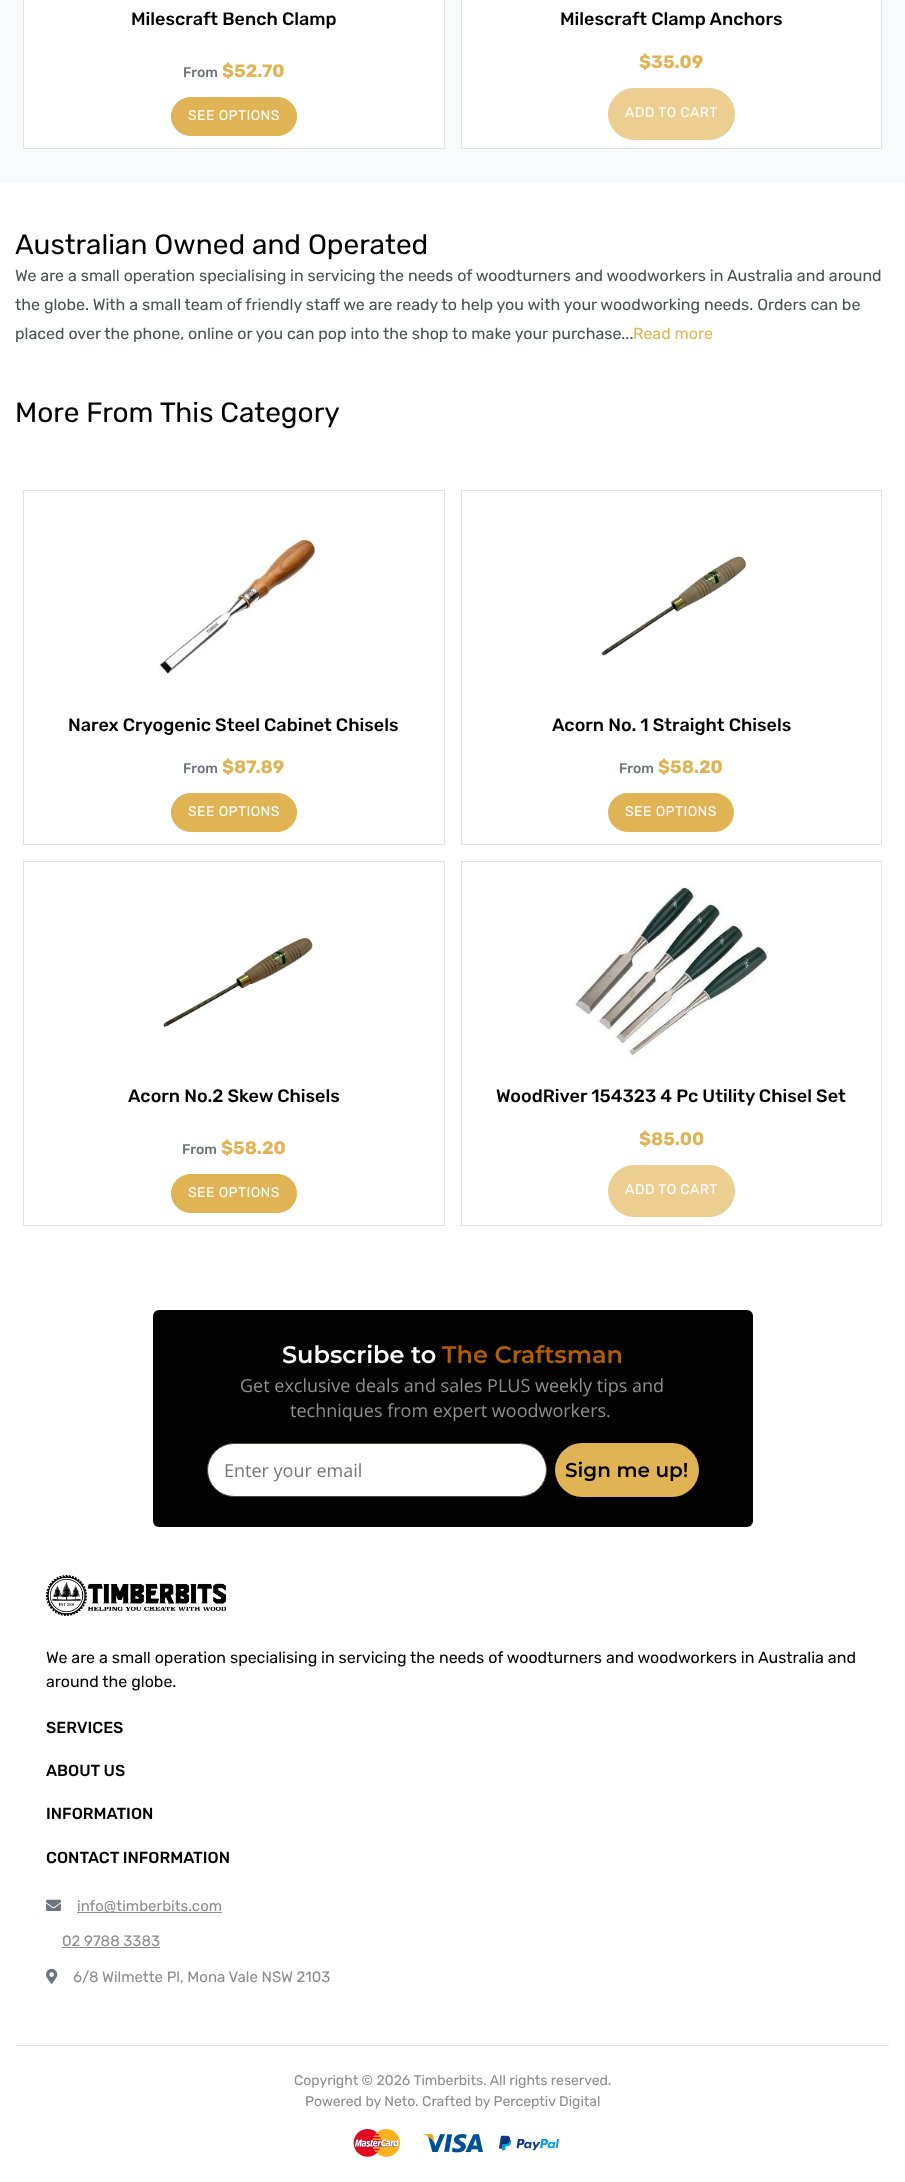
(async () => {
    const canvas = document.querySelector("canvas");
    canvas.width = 905;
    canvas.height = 2182;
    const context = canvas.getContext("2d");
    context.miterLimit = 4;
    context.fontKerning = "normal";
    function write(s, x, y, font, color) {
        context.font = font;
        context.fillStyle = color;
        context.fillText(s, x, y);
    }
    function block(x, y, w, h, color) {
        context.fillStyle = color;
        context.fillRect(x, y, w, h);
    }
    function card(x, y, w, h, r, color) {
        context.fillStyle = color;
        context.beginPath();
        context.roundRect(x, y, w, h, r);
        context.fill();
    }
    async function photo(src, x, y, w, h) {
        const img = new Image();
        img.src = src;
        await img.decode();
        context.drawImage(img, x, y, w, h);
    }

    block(0, 0, 905, 2182, "rgb(255, 255, 255)");
    block(0, 0, 905, 183, "rgb(248, 249, 250)");
    context.fillStyle = "rgb(255, 255, 255)";
    context.beginPath();
    context.rect(23.5, -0.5, 421, 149);
    context.fill();
    context.strokeStyle = "rgb(222, 226, 230)";
    context.stroke();
    write("Milescraft Bench Clamp", 131, 25, "500 18px Rubik", "rgb(0, 0, 0)");
    write("From", 183, 77, "500 14px Rubik", "rgb(108, 117, 125)");
    write("$52.70", 222, 77, "bold 18px Rubik", "rgb(224, 179, 84)");
    context.beginPath();
    context.roundRect(171.5, 97.5, 125, 38, 19);
    context.fill();
    context.strokeStyle = "rgb(224, 179, 84)";
    context.stroke();
    context.letterSpacing = "0.4px";
    write("SEE OPTIONS", 188, 120, "14px Rubik", "rgb(255, 255, 255)");
    context.beginPath();
    context.rect(461.5, -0.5, 420, 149);
    context.fill();
    context.strokeStyle = "rgb(222, 226, 230)";
    context.stroke();
    context.letterSpacing = "0px";
    write("Milescraft Clamp Anchors", 560, 25, "500 18px Rubik", "rgb(0, 0, 0)");
    write("$35.09", 639, 68, "bold 18px Rubik", "rgb(224, 179, 84)");
    context.fillStyle = "rgb(235, 206, 144)";
    context.beginPath();
    context.roundRect(608.5, 88.5, 126, 51, 25.5);
    context.fill();
    context.strokeStyle = "rgb(235, 206, 144)";
    context.stroke();
    context.letterSpacing = "0.4px";
    write("ADD TO CART", 625, 117, "14px Rubik", "rgb(255, 255, 255)");
    context.letterSpacing = "0px";
    write("Australian Owned and Operated", 15, 254, "28px Rubik", "rgb(0, 0, 0)");
    write("We are a small operation specialising in servicing the needs of woodturners and woodworkers in Australia and around", 15, 281, "16px Rubik", "rgb(73, 80, 87)");
    write("the globe. With a small team of friendly staff we are ready to help you with your woodworking needs. Orders can be", 15, 310, "16px Rubik", "rgb(73, 80, 87)");
    write("placed over the phone, online or you can pop into the shop to make your purchase...", 15, 339, "16px Rubik", "rgb(73, 80, 87)");
    write("Read more", 633, 339, "16px Rubik", "rgb(224, 179, 84)");
    write("More From This Category", 15, 422, "28px Rubik", "rgb(0, 0, 0)");
    context.strokeStyle = "rgb(222, 226, 230)";
    context.strokeRect(23.5, 490.5, 421, 354);
    await photo("media/1.png", 159, 539, 159, 135);
    write("Narex Cryogenic Steel Cabinet Chisels", 68, 731, "500 18px Rubik", "rgb(0, 0, 0)");
    write("From", 183, 773, "500 14px Rubik", "rgb(108, 117, 125)");
    write("$87.89", 222, 773, "bold 18px Rubik", "rgb(224, 179, 84)");
    context.beginPath();
    context.roundRect(171.5, 793.5, 125, 38, 19);
    context.fill();
    context.strokeStyle = "rgb(224, 179, 84)";
    context.stroke();
    context.letterSpacing = "0.4px";
    write("SEE OPTIONS", 188, 816, "14px Rubik", "rgb(255, 255, 255)");
    context.strokeStyle = "rgb(222, 226, 230)";
    context.strokeRect(461.5, 490.5, 420, 354);
    await photo("media/2.png", 601, 556, 146, 100);
    context.letterSpacing = "0px";
    write("Acorn No. 1 Straight Chisels", 552, 731, "500 18px Rubik", "rgb(0, 0, 0)");
    write("From", 619, 773, "500 14px Rubik", "rgb(108, 117, 125)");
    write("$58.20", 658, 773, "bold 18px Rubik", "rgb(224, 179, 84)");
    context.beginPath();
    context.roundRect(608.5, 793.5, 125, 38, 19);
    context.fill();
    context.strokeStyle = "rgb(224, 179, 84)";
    context.stroke();
    context.letterSpacing = "0.4px";
    write("SEE OPTIONS", 625, 816, "14px Rubik", "rgb(255, 255, 255)");
    context.strokeStyle = "rgb(222, 226, 230)";
    context.strokeRect(23.5, 861.5, 421, 364);
    await photo("media/3.png", 163, 938, 150, 89);
    context.letterSpacing = "0px";
    write("Acorn No.2 Skew Chisels", 128, 1102, "500 18px Rubik", "rgb(0, 0, 0)");
    write("From", 182, 1154, "500 14px Rubik", "rgb(108, 117, 125)");
    write("$58.20", 221, 1154, "bold 18px Rubik", "rgb(224, 179, 84)");
    context.beginPath();
    context.roundRect(171.5, 1174.5, 125, 38, 19);
    context.fill();
    context.strokeStyle = "rgb(224, 179, 84)";
    context.stroke();
    context.letterSpacing = "0.4px";
    write("SEE OPTIONS", 188, 1197, "14px Rubik", "rgb(255, 255, 255)");
    context.strokeStyle = "rgb(222, 226, 230)";
    context.strokeRect(461.5, 861.5, 420, 364);
    await photo("media/4.png", 575, 886, 193, 173);
    context.letterSpacing = "0px";
    write("WoodRiver 154323 4 Pc Utility Chisel Set", 496, 1102, "500 18px Rubik", "rgb(0, 0, 0)");
    write("$85.00", 639, 1145, "bold 18px Rubik", "rgb(224, 179, 84)");
    context.fillStyle = "rgb(235, 206, 144)";
    context.beginPath();
    context.roundRect(608.5, 1165.5, 126, 51, 25.5);
    context.fill();
    context.strokeStyle = "rgb(235, 206, 144)";
    context.stroke();
    context.letterSpacing = "0.4px";
    write("ADD TO CART", 625, 1194, "14px Rubik", "rgb(255, 255, 255)");
    card(153, 1310, 600, 217, 6, "rgb(2, 2, 2)");
    context.letterSpacing = "0px";
    write("Subscribe to", 282, 1363, "600 24px Montserrat", "rgb(255, 255, 255)");
    write("The Craftsman", 442, 1363, "600 24px Montserrat", "rgb(178, 94, 5)");
    write("Get exclusive deals and sales PLUS weekly tips and", 240, 1392, "18px Open Sans", "rgb(147, 143, 140)");
    write("techniques from expert woodworkers.", 290, 1417, "18px Open Sans", "rgb(147, 143, 140)");
    context.fillStyle = "rgb(255, 255, 255)";
    context.beginPath();
    context.roundRect(207.5, 1443.5, 339, 53, 26.5);
    context.fill();
    context.strokeStyle = "rgb(84, 70, 47)";
    context.stroke();
    write("Enter your email", 224, 1477, "18px Open Sans", "rgb(118, 118, 118)");
    card(555, 1443, 144, 54, 27, "rgb(224, 179, 84)");
    write("Sign me up!", 565, 1477, "600 20px Montserrat", "rgb(0, 0, 0)");
    await photo("media/5.png", 46, 1575, 180, 41);
    write("We are a small operation specialising in servicing the needs of woodturners and woodworkers in Australia and", 46, 1663, "16px Rubik", "rgb(0, 0, 0)");
    write("around the globe.", 46, 1687, "16px Rubik", "rgb(0, 0, 0)");
    write("SERVICES", 46, 1733, "500 16px Rubik", "rgb(0, 0, 0)");
    write("ABOUT US", 46, 1776, "500 16px Rubik", "rgb(0, 0, 0)");
    write("INFORMATION", 46, 1819, "500 16px Rubik", "rgb(0, 0, 0)");
    write("CONTACT INFORMATION", 46, 1863, "500 16px Rubik", "rgb(0, 0, 0)");
    await photo("media/6.png", 46, 1899, 15, 12);
    block(77, 1912, 145, 1, "rgb(140, 140, 140)");
    write("info@timberbits.com", 77, 1911, "15px Rubik", "rgb(140, 140, 140)");
    write("02 9788 3383", 62, 1946, "15px Rubik", "rgb(140, 140, 140)");
    block(62, 1947, 98, 1, "rgb(140, 140, 140)");
    await photo("media/7.png", 46, 1968, 12, 16);
    write("6/8 Wilmette Pl, Mona Vale NSW 2103", 73, 1982, "15px Rubik", "rgb(140, 140, 140)");
    block(16, 2045, 873, 1, "rgb(222, 226, 230)");
    write("Copyright © 2026 Timberbits. All rights reserved.", 294, 2085, "14px Rubik", "rgb(140, 140, 140)");
    write("Powered by Neto. Crafted by Perceptiv Digital", 305, 2106, "14px Rubik", "rgb(140, 140, 140)");
    await photo("media/8.png", 353, 2129, 48, 28);
    await photo("media/9.png", 423, 2134, 60, 19);
    await photo("media/10.png", 499, 2135, 60, 16);
})();
